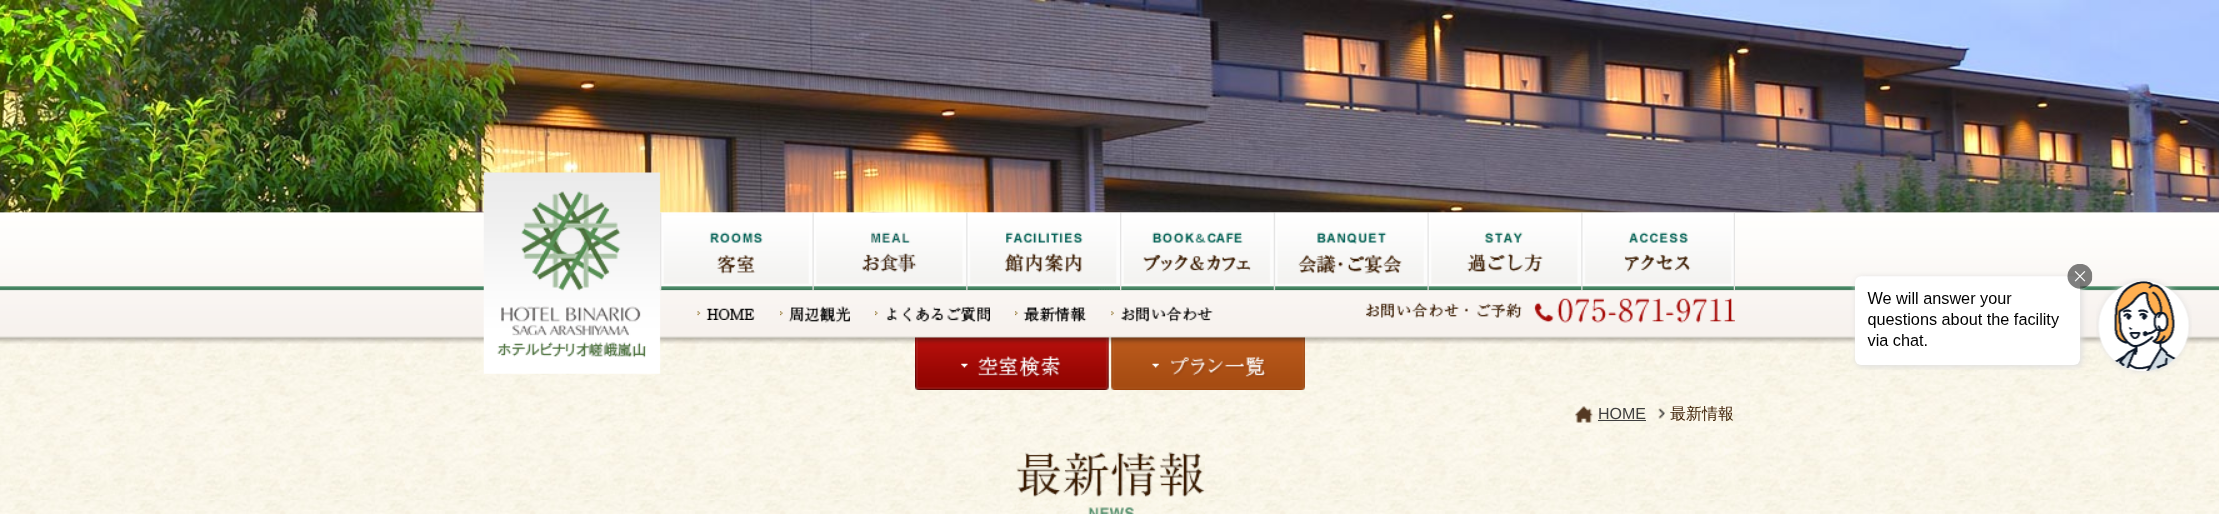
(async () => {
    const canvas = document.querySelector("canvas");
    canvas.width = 2219;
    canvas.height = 514;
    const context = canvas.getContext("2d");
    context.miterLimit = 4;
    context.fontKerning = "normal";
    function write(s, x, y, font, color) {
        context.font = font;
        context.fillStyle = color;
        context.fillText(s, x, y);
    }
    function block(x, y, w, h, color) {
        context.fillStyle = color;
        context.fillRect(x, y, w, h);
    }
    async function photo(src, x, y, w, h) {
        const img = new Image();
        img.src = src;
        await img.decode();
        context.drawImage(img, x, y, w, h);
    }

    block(0, 0, 2219, 514, "rgb(255, 255, 255)");
    await photo("media/1.png", 0, 337, 2219, 177);
    await photo("media/4.png", 0, 0, 2219, 213);
    await photo("media/5.png", 0, 212, 2219, 132);
    await photo("media/2.png", 1850, 264, 243, 106);
    await photo("media/3.png", 2096, 278, 96, 97);
    await photo("media/7.png", 660, 212, 153, 78);
    await photo("media/6.png", 483, 172, 178, 202);
    await photo("media/8.png", 812, 212, 155, 78);
    await photo("media/9.png", 966, 212, 154, 78);
    await photo("media/10.png", 1120, 212, 154, 78);
    await photo("media/11.png", 1273, 212, 155, 78);
    await photo("media/12.png", 1427, 212, 155, 78);
    await photo("media/13.png", 1581, 212, 154, 78);
    await photo("media/14.png", 697, 308, 58, 12);
    await photo("media/15.png", 780, 306, 70, 17);
    await photo("media/16.png", 875, 306, 115, 16);
    await photo("media/17.png", 1015, 306, 72, 17);
    await photo("media/18.png", 1111, 306, 102, 16);
    await photo("media/19.png", 1366, 298, 369, 25);
    await photo("media/20.png", 915, 337, 194, 53);
    await photo("media/21.png", 1111, 337, 194, 53);
    await photo("media/22.png", 1575, 406, 18, 17);
    write("HOME", 1598, 419, "16px Liberation Sans", "rgb(63, 63, 63)");
    block(1598, 420, 48, 1, "rgb(63, 63, 63)");
    await photo("media/23.png", 1658, 408, 7, 11);
    write("最新情報", 1670, 419, "500 16px WenQuanYi Zen Hei", "rgb(59, 28, 1)");
    await photo("media/24.png", 1016, 452, 189, 62);
})();
